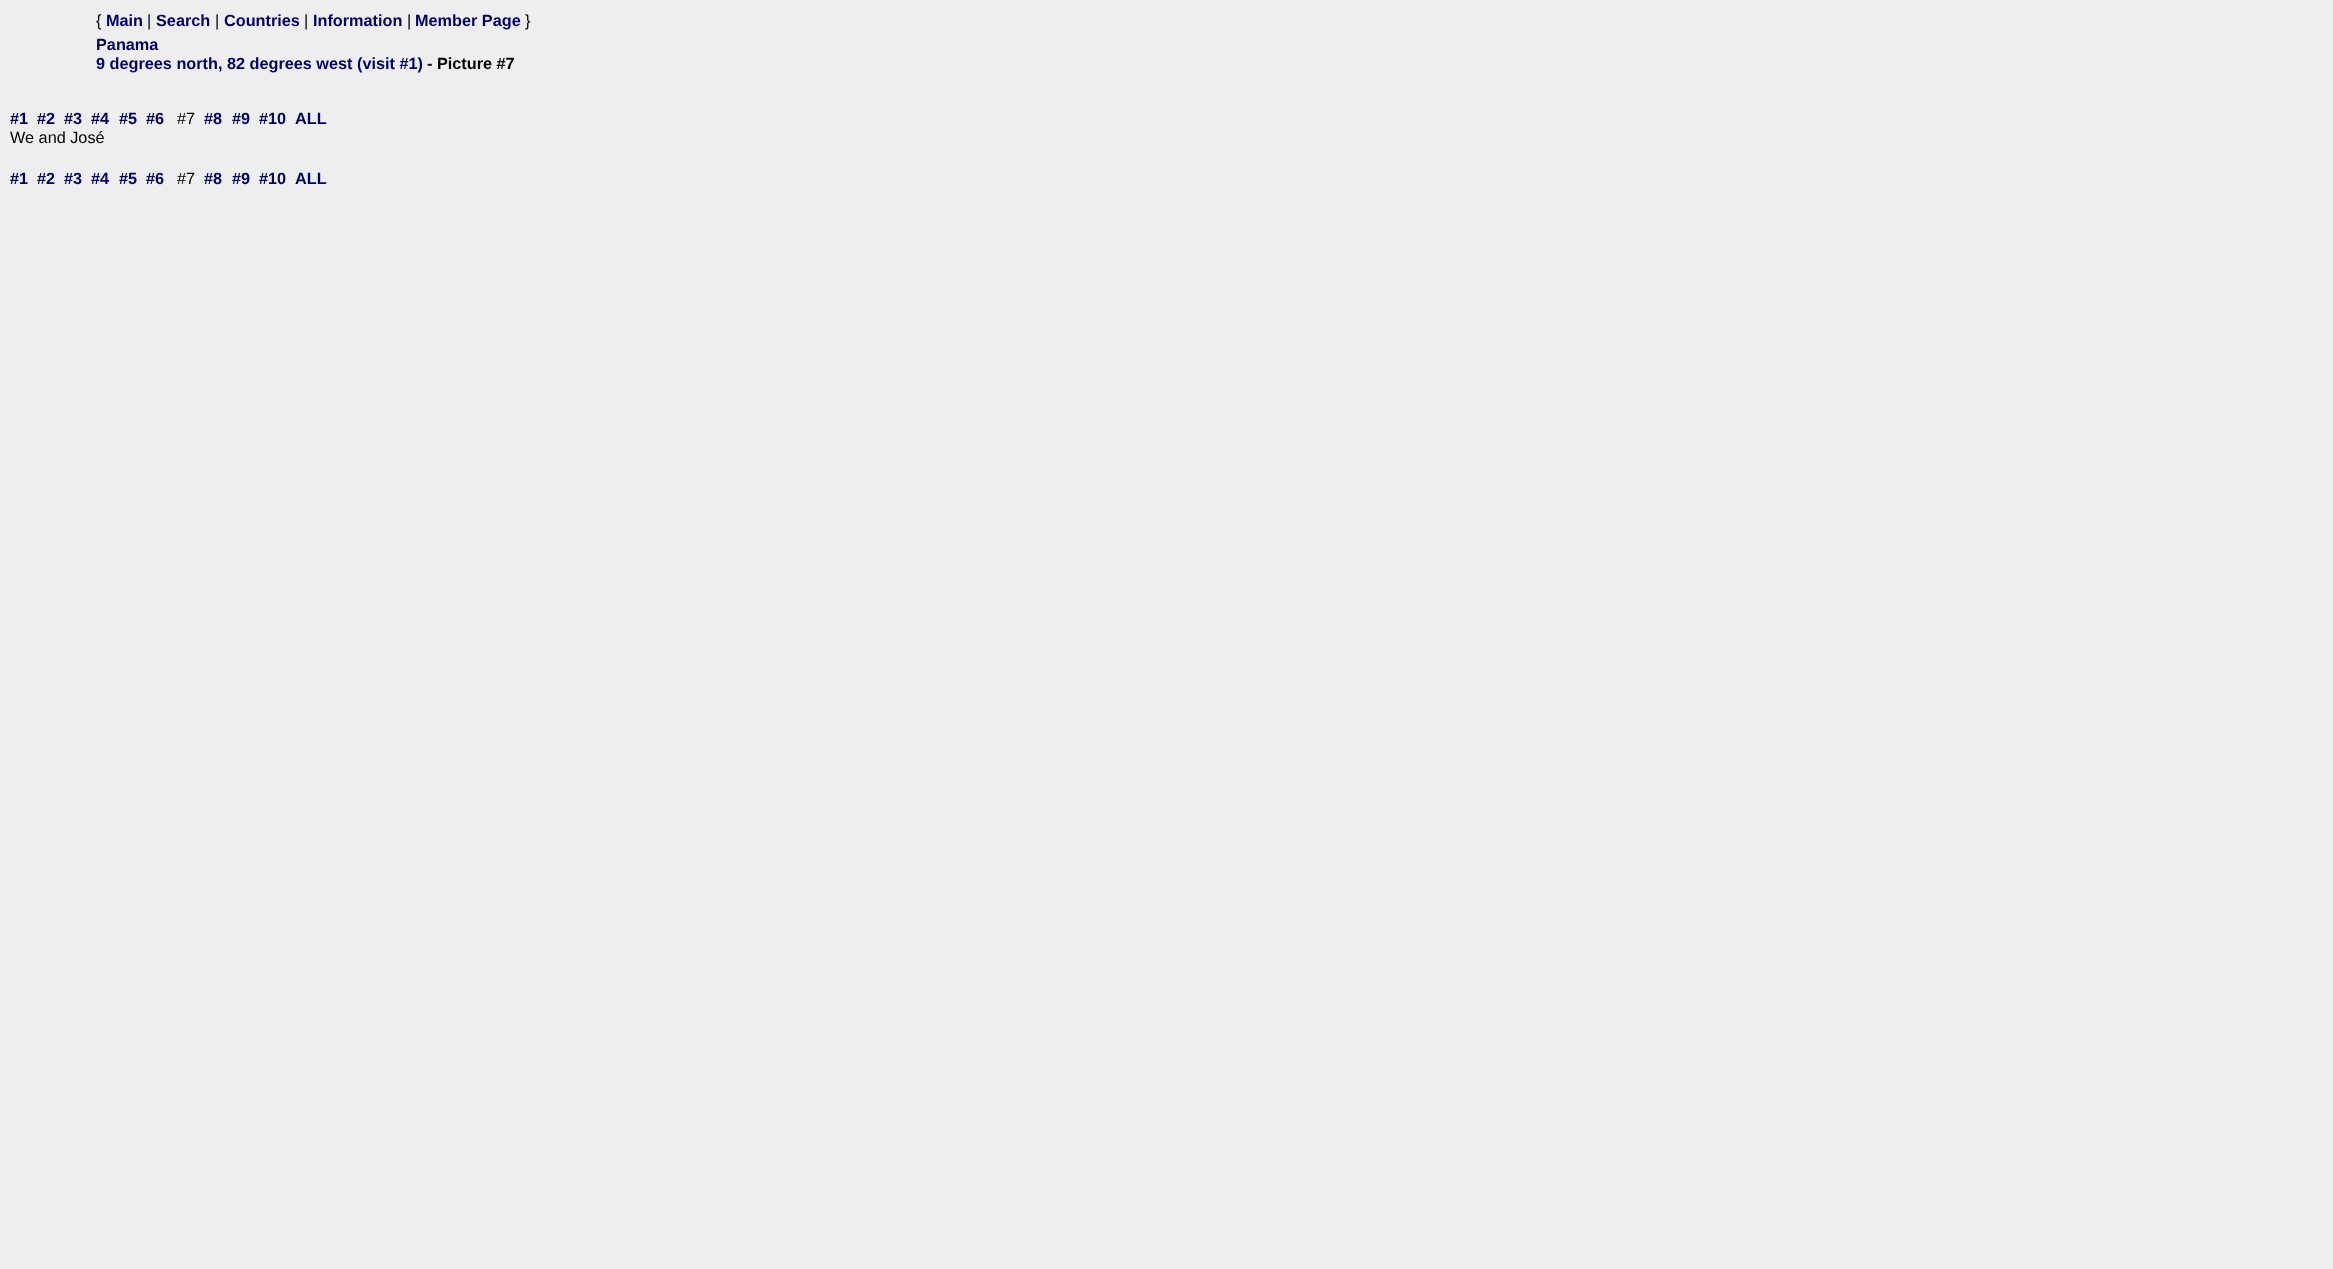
(async () => {
    const canvas = document.querySelector("canvas");
    canvas.width = 2333;
    canvas.height = 1269;
    const context = canvas.getContext("2d");
    context.miterLimit = 4;
    context.fontKerning = "normal";
    function write(s, x, y, font, color) {
        context.font = font;
        context.fillStyle = color;
        context.fillText(s, x, y);
    }
    function block(x, y, w, h, color) {
        context.fillStyle = color;
        context.fillRect(x, y, w, h);
    }

    block(0, 0, 2333, 1269, "rgb(238, 238, 238)");
    write("{", 96, 26, "16.25px Liberation Sans", "rgb(0, 0, 0)");
    write("Main", 106, 26, "bold 16.25px Liberation Sans", "rgb(0, 0, 112)");
    write("|", 147, 26, "16.25px Liberation Sans", "rgb(0, 0, 0)");
    write("Search", 156, 26, "bold 16.25px Liberation Sans", "rgb(0, 0, 112)");
    write("|", 215, 26, "16.25px Liberation Sans", "rgb(0, 0, 0)");
    write("Countries", 224, 26, "bold 16.25px Liberation Sans", "rgb(0, 0, 112)");
    write("|", 304, 26, "16.25px Liberation Sans", "rgb(0, 0, 0)");
    write("Information", 313, 26, "bold 16.25px Liberation Sans", "rgb(0, 0, 112)");
    write("|", 407, 26, "16.25px Liberation Sans", "rgb(0, 0, 0)");
    write("Member Page", 415, 26, "bold 16.25px Liberation Sans", "rgb(0, 0, 112)");
    write("}", 525, 26, "16.25px Liberation Sans", "rgb(0, 0, 0)");
    write("Panama", 96, 50, "bold 16.25px Liberation Sans", "rgb(0, 0, 112)");
    write("9 degrees north, 82 degrees west (visit #1)", 96, 69, "bold 16.25px Liberation Sans", "rgb(0, 0, 112)");
    write("- Picture #7", 427, 69, "bold 16.25px Liberation Sans", "rgb(0, 0, 0)");
    write("#1", 10, 124, "bold 16.25px Liberation Sans", "rgb(0, 0, 112)");
    write("#2", 37, 124, "bold 16.25px Liberation Sans", "rgb(0, 0, 112)");
    write("#3", 64, 124, "bold 16.25px Liberation Sans", "rgb(0, 0, 112)");
    write("#4", 91, 124, "bold 16.25px Liberation Sans", "rgb(0, 0, 112)");
    write("#5", 119, 124, "bold 16.25px Liberation Sans", "rgb(0, 0, 112)");
    write("#6", 146, 124, "bold 16.25px Liberation Sans", "rgb(0, 0, 112)");
    write("#7", 177, 124, "16.25px Liberation Sans", "rgb(0, 0, 0)");
    write("#8", 204, 124, "bold 16.25px Liberation Sans", "rgb(0, 0, 112)");
    write("#9", 232, 124, "bold 16.25px Liberation Sans", "rgb(0, 0, 112)");
    write("#10", 259, 124, "bold 16.25px Liberation Sans", "rgb(0, 0, 112)");
    write("ALL", 295, 124, "bold 16.25px Liberation Sans", "rgb(0, 0, 112)");
    write("We and José", 10, 143, "16.25px Liberation Sans", "rgb(0, 0, 0)");
    write("#1", 10, 184, "bold 16.25px Liberation Sans", "rgb(0, 0, 112)");
    write("#2", 37, 184, "bold 16.25px Liberation Sans", "rgb(0, 0, 112)");
    write("#3", 64, 184, "bold 16.25px Liberation Sans", "rgb(0, 0, 112)");
    write("#4", 91, 184, "bold 16.25px Liberation Sans", "rgb(0, 0, 112)");
    write("#5", 119, 184, "bold 16.25px Liberation Sans", "rgb(0, 0, 112)");
    write("#6", 146, 184, "bold 16.25px Liberation Sans", "rgb(0, 0, 112)");
    write("#7", 177, 184, "16.25px Liberation Sans", "rgb(0, 0, 0)");
    write("#8", 204, 184, "bold 16.25px Liberation Sans", "rgb(0, 0, 112)");
    write("#9", 232, 184, "bold 16.25px Liberation Sans", "rgb(0, 0, 112)");
    write("#10", 259, 184, "bold 16.25px Liberation Sans", "rgb(0, 0, 112)");
    write("ALL", 295, 184, "bold 16.25px Liberation Sans", "rgb(0, 0, 112)");
})();
